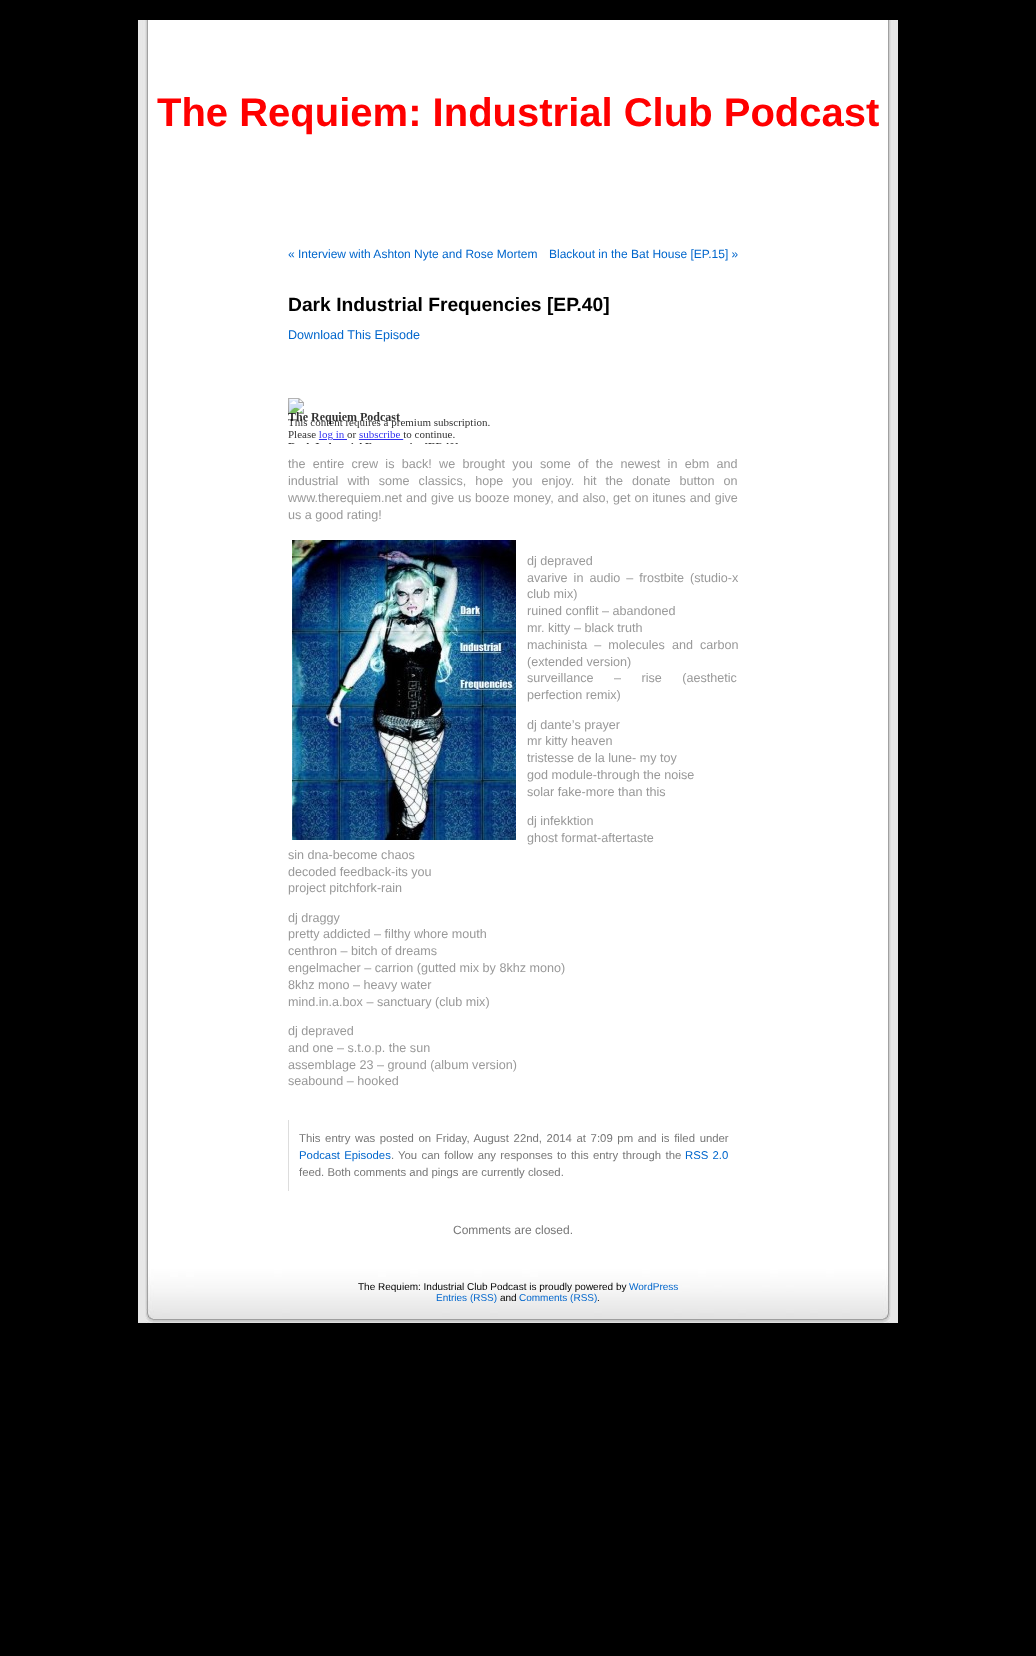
(async () => {
    const canvas = document.querySelector("canvas");
    canvas.width = 1036;
    canvas.height = 1656;
    const context = canvas.getContext("2d");
    context.miterLimit = 4;
    context.fontKerning = "normal";
    function write(s, x, y, font, color) {
        context.font = font;
        context.fillStyle = color;
        context.fillText(s, x, y);
    }
    function block(x, y, w, h, color) {
        context.fillStyle = color;
        context.fillRect(x, y, w, h);
    }
    async function photo(src, x, y, w, h) {
        const img = new Image();
        img.src = src;
        await img.decode();
        context.drawImage(img, x, y, w, h);
    }

    block(0, 0, 1036, 1656, "rgb(0, 0, 0)");
    await photo("media/1.png", 138, 20, 760, 1241);
    write("The Requiem: Industrial Club Podcast", 157, 126, "bold 40px Liberation Sans", "rgb(255, 0, 0)");
    write("« Interview with Ashton Nyte and Rose Mortem", 288, 258, "12px Liberation Sans", "rgb(0, 102, 204)");
    write("Blackout in the Bat House [EP.15] »", 549, 258, "12px Liberation Sans", "rgb(0, 102, 204)");
    write("Dark Industrial Frequencies [EP.40]", 288, 311, "bold 19.25px Liberation Sans", "rgb(0, 0, 0)");
    write("Download This Episode", 288, 339, "12.6px Liberation Sans", "rgb(0, 102, 204)");
    await photo("media/2.png", 288, 398, 202, 46);
    context.wordSpacing = "3.75px";
    write("the entire crew is back! we brought you some of the newest in ebm and", 288, 468, "12.6px Liberation Sans", "rgb(153, 153, 153)");
    context.wordSpacing = "5.5px";
    write("industrial with some classics, hope you enjoy. hit the donate button on", 288, 485, "12.6px Liberation Sans", "rgb(153, 153, 153)");
    context.wordSpacing = "0.4px";
    write("www.therequiem.net and give us booze money, and also, get on itunes and give", 288, 502, "12.6px Liberation Sans", "rgb(153, 153, 153)");
    context.wordSpacing = "0px";
    write("us a good rating!", 288, 519, "12.6px Liberation Sans", "rgb(153, 153, 153)");
    await photo("media/3.png", 292, 540, 224, 300);
    write("dj depraved", 527, 565, "12.6px Liberation Sans", "rgb(153, 153, 153)");
    context.wordSpacing = "2.5px";
    write("avarive in audio – frostbite (studio-x", 527, 582, "12.6px Liberation Sans", "rgb(153, 153, 153)");
    context.wordSpacing = "0px";
    write("club mix)", 527, 598, "12.6px Liberation Sans", "rgb(153, 153, 153)");
    write("ruined conflit – abandoned", 527, 615, "12.6px Liberation Sans", "rgb(153, 153, 153)");
    write("mr. kitty – black truth", 527, 632, "12.6px Liberation Sans", "rgb(153, 153, 153)");
    context.wordSpacing = "3.5px";
    write("machinista – molecules and carbon", 527, 649, "12.6px Liberation Sans", "rgb(153, 153, 153)");
    context.wordSpacing = "0px";
    write("(extended version)", 527, 666, "12.6px Liberation Sans", "rgb(153, 153, 153)");
    context.wordSpacing = "17px";
    write("surveillance – rise (aesthetic", 527, 682, "12.6px Liberation Sans", "rgb(153, 153, 153)");
    context.wordSpacing = "0px";
    write("perfection remix)", 527, 699, "12.6px Liberation Sans", "rgb(153, 153, 153)");
    write("dj dante’s prayer", 527, 729, "12.6px Liberation Sans", "rgb(153, 153, 153)");
    write("mr kitty heaven", 527, 745, "12.6px Liberation Sans", "rgb(153, 153, 153)");
    write("tristesse de la lune- my toy", 527, 762, "12.6px Liberation Sans", "rgb(153, 153, 153)");
    write("god module-through the noise", 527, 779, "12.6px Liberation Sans", "rgb(153, 153, 153)");
    write("solar fake-more than this", 527, 796, "12.6px Liberation Sans", "rgb(153, 153, 153)");
    write("dj infekktion", 527, 825, "12.6px Liberation Sans", "rgb(153, 153, 153)");
    write("ghost format-aftertaste", 527, 842, "12.6px Liberation Sans", "rgb(153, 153, 153)");
    write("sin dna-become chaos", 288, 859, "12.6px Liberation Sans", "rgb(153, 153, 153)");
    write("decoded feedback-its you", 288, 876, "12.6px Liberation Sans", "rgb(153, 153, 153)");
    write("project pitchfork-rain", 288, 892, "12.6px Liberation Sans", "rgb(153, 153, 153)");
    write("dj draggy", 288, 922, "12.6px Liberation Sans", "rgb(153, 153, 153)");
    write("pretty addicted – filthy whore mouth", 288, 938, "12.6px Liberation Sans", "rgb(153, 153, 153)");
    write("centhron – bitch of dreams", 288, 955, "12.6px Liberation Sans", "rgb(153, 153, 153)");
    write("engelmacher – carrion (gutted mix by 8khz mono)", 288, 972, "12.6px Liberation Sans", "rgb(153, 153, 153)");
    write("8khz mono – heavy water", 288, 989, "12.6px Liberation Sans", "rgb(153, 153, 153)");
    write("mind.in.a.box – sanctuary (club mix)", 288, 1006, "12.6px Liberation Sans", "rgb(153, 153, 153)");
    write("dj depraved", 288, 1035, "12.6px Liberation Sans", "rgb(153, 153, 153)");
    write("and one – s.t.o.p. the sun", 288, 1052, "12.6px Liberation Sans", "rgb(153, 153, 153)");
    write("assemblage 23 – ground (album version)", 288, 1069, "12.6px Liberation Sans", "rgb(153, 153, 153)");
    write("seabound – hooked", 288, 1085, "12.6px Liberation Sans", "rgb(153, 153, 153)");
    block(288, 1120, 1, 71, "rgb(221, 221, 221)");
    context.wordSpacing = "1.5px";
    write("This entry was posted on Friday, August 22nd, 2014 at 7:09 pm and is filed under", 299, 1142, "11.35px Liberation Sans", "rgb(119, 119, 119)");
    context.wordSpacing = "1px";
    write("Podcast Episodes", 299, 1159, "11.35px Liberation Sans", "rgb(0, 102, 204)");
    context.wordSpacing = "0px";
    write(".", 391, 1159, "11.35px Liberation Sans", "rgb(119, 119, 119)");
    context.wordSpacing = "1.25px";
    write("You can follow any responses to this entry through the", 398, 1159, "11.35px Liberation Sans", "rgb(119, 119, 119)");
    context.wordSpacing = "1px";
    write("RSS 2.0", 685, 1159, "11.35px Liberation Sans", "rgb(0, 102, 204)");
    context.wordSpacing = "0px";
    write("feed. Both comments and pings are currently closed.", 299, 1176, "11.35px Liberation Sans", "rgb(119, 119, 119)");
    write("Comments are closed.", 453, 1234, "12px Liberation Sans", "rgb(119, 119, 119)");
    block(138, 1261, 760, 62, "rgb(231, 231, 231)");
    await photo("media/4.png", 145, 1261, 746, 62);
    write("The Requiem: Industrial Club Podcast is proudly powered by", 358, 1290, "10px Liberation Sans", "rgb(0, 0, 0)");
    write("WordPress", 629, 1290, "10px Liberation Sans", "rgb(0, 102, 204)");
    write("Entries (RSS)", 436, 1301, "10px Liberation Sans", "rgb(0, 102, 204)");
    write("and", 500, 1301, "10px Liberation Sans", "rgb(0, 0, 0)");
    write("Comments (RSS)", 519, 1301, "10px Liberation Sans", "rgb(0, 102, 204)");
    write(".", 597, 1301, "10px Liberation Sans", "rgb(0, 0, 0)");
})();
